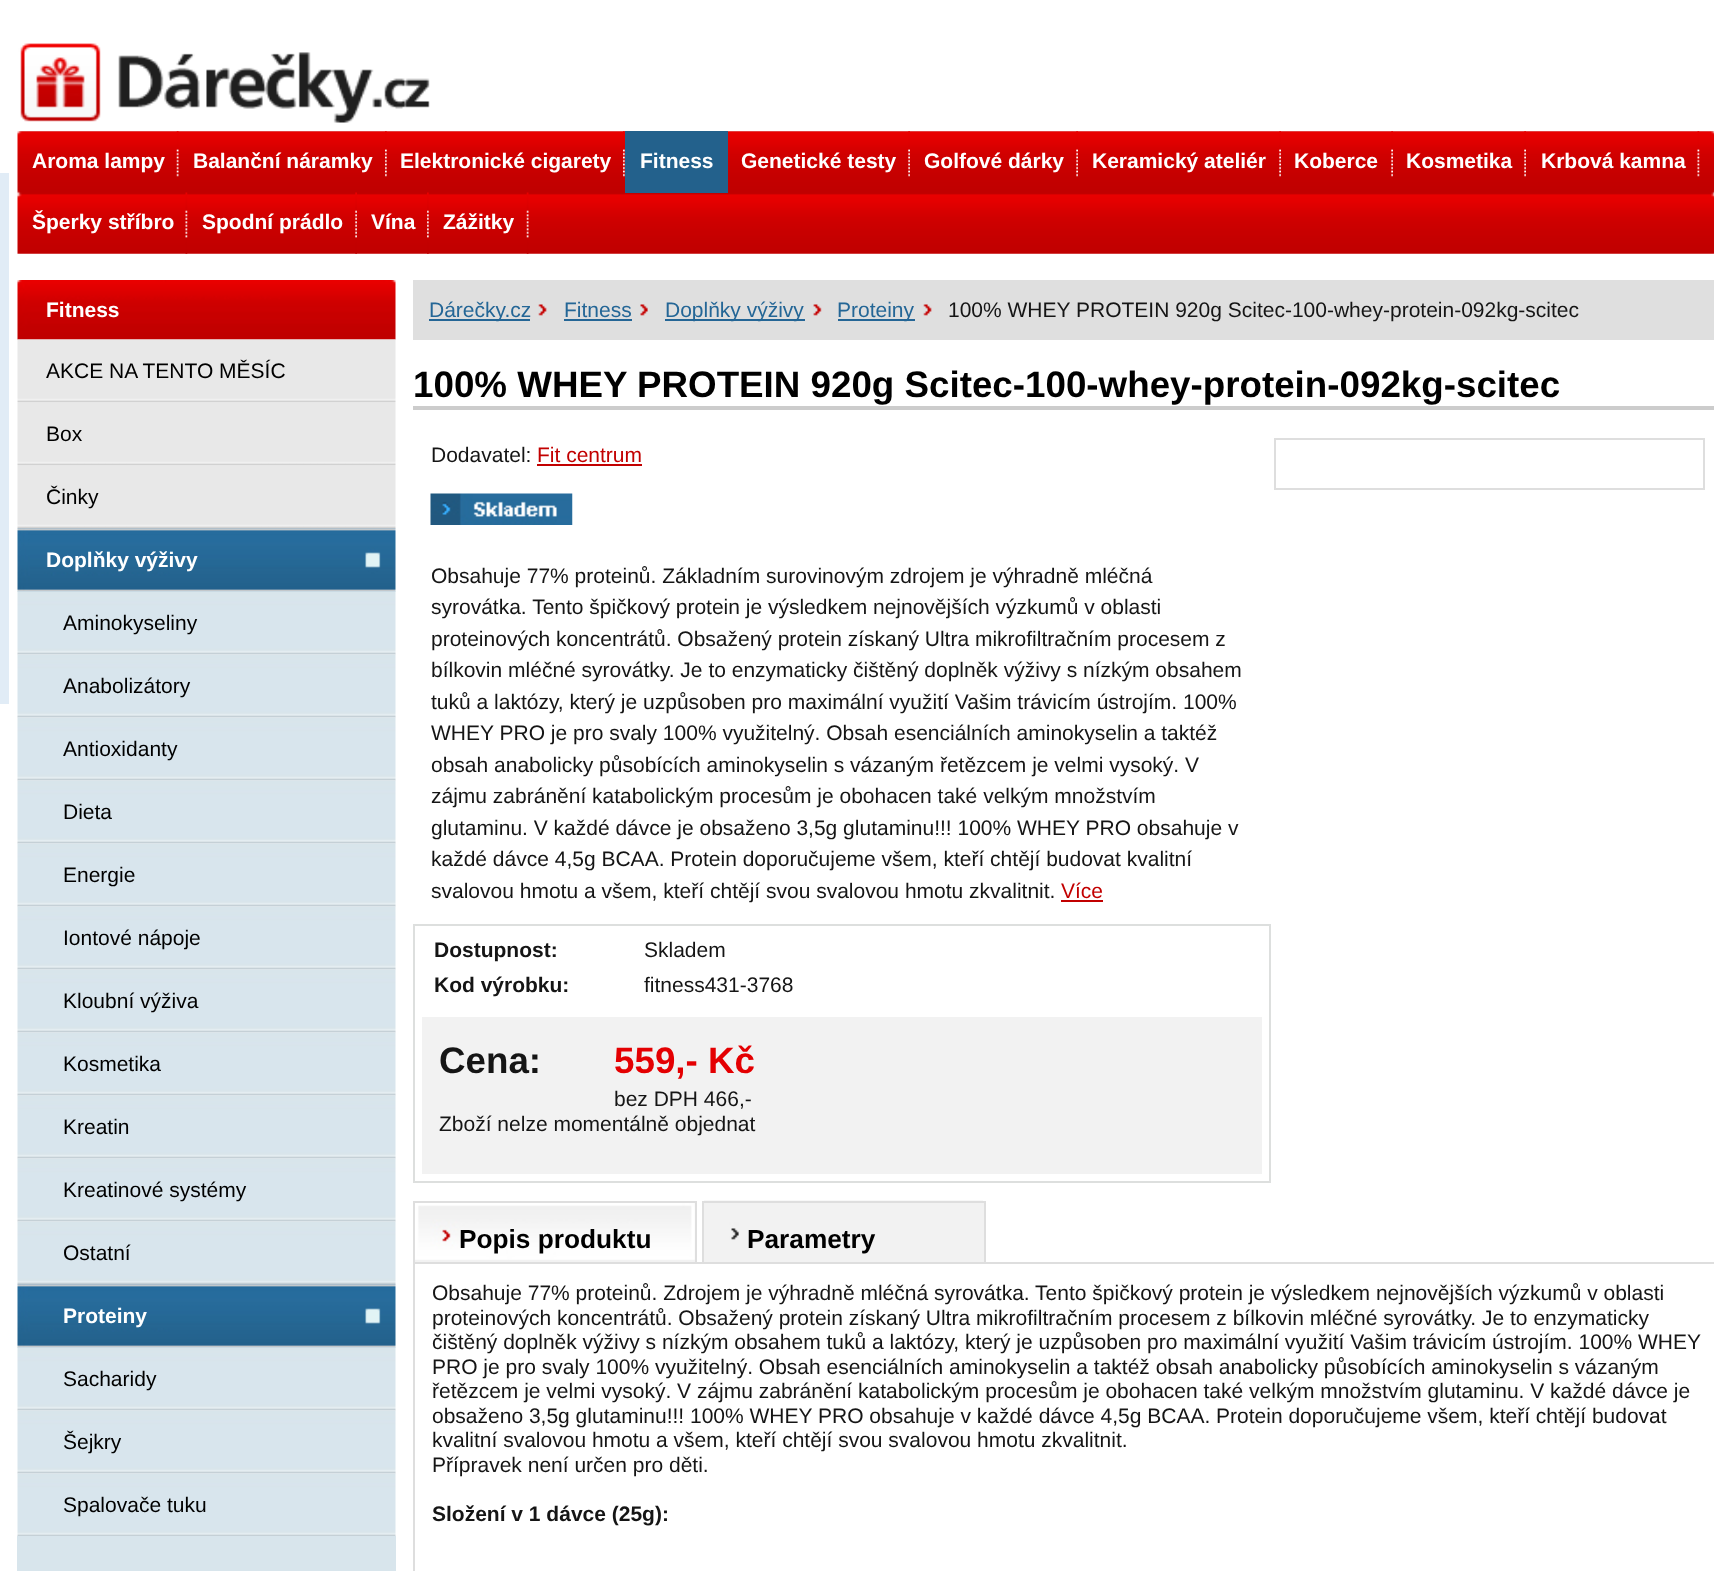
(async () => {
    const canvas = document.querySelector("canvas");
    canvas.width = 1714;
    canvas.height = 1571;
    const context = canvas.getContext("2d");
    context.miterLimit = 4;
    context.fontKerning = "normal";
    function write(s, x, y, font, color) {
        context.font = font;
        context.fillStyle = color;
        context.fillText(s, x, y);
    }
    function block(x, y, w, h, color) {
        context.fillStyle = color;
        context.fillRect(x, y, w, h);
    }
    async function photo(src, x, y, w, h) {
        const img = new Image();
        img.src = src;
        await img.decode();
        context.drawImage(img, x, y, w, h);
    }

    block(0, 0, 1714, 1571, "rgb(255, 255, 255)");
    block(0, 173, 9, 531, "rgb(225, 236, 246)");
    await photo("media/1.png", 18, 38, 412, 85);
    await photo("media/2.png", 17, 131, 1697, 123);
    await photo("media/3.png", 176, 131, 3, 46);
    write("Aroma lampy", 32, 168, "bold 21px Liberation Sans", "rgb(255, 255, 255)");
    await photo("media/4.png", 385, 131, 2, 46);
    write("Balanční náramky", 193, 168, "bold 21px Liberation Sans", "rgb(255, 255, 255)");
    await photo("media/4.png", 623, 131, 2, 46);
    write("Elektronické cigarety", 400, 168, "bold 21px Liberation Sans", "rgb(255, 255, 255)");
    block(625, 131, 103, 62, "rgb(35, 97, 140)");
    write("Fitness", 640, 168, "bold 21px Liberation Sans", "rgb(255, 255, 255)");
    await photo("media/5.png", 908, 131, 2, 46);
    write("Genetické testy", 741, 168, "bold 21px Liberation Sans", "rgb(255, 255, 255)");
    await photo("media/5.png", 1076, 131, 2, 46);
    write("Golfové dárky", 924, 168, "bold 21px Liberation Sans", "rgb(255, 255, 255)");
    await photo("media/5.png", 1279, 131, 2, 46);
    write("Keramický ateliér", 1092, 168, "bold 21px Liberation Sans", "rgb(255, 255, 255)");
    await photo("media/5.png", 1391, 131, 2, 46);
    write("Koberce", 1294, 168, "bold 21px Liberation Sans", "rgb(255, 255, 255)");
    await photo("media/5.png", 1524, 131, 2, 46);
    write("Kosmetika", 1406, 168, "bold 21px Liberation Sans", "rgb(255, 255, 255)");
    await photo("media/6.png", 1697, 131, 3, 46);
    write("Krbová kamna", 1541, 168, "bold 21px Liberation Sans", "rgb(255, 255, 255)");
    await photo("media/7.png", 185, 192, 3, 62);
    write("Šperky stříbro", 32, 229, "bold 21px Liberation Sans", "rgb(255, 255, 255)");
    await photo("media/8.png", 355, 192, 2, 62);
    write("Spodní prádlo", 202, 229, "bold 21px Liberation Sans", "rgb(255, 255, 255)");
    await photo("media/9.png", 427, 192, 2, 62);
    write("Vína", 371, 229, "bold 21px Liberation Sans", "rgb(255, 255, 255)");
    await photo("media/10.png", 526, 192, 3, 62);
    write("Zážitky", 443, 229, "bold 21px Liberation Sans", "rgb(255, 255, 255)");
    await photo("media/11.png", 17, 280, 379, 60);
    write("Fitness", 46, 317, "bold 21px Liberation Sans", "rgb(255, 255, 255)");
    await photo("media/12.png", 17, 339, 379, 64);
    write("AKCE NA TENTO MĚSÍC", 46, 378, "21px Liberation Sans", "rgb(0, 0, 0)");
    await photo("media/13.png", 17, 403, 379, 63);
    write("Box", 46, 441, "21px Liberation Sans", "rgb(0, 0, 0)");
    await photo("media/13.png", 17, 466, 379, 63);
    write("Činky", 46, 504, "21px Liberation Sans", "rgb(0, 0, 0)");
    await photo("media/14.png", 17, 528, 379, 64);
    write("Doplňky výživy", 46, 567, "bold 21px Liberation Sans", "rgb(255, 255, 255)");
    await photo("media/15.png", 17, 591, 379, 64);
    write("Aminokyseliny", 63, 630, "21px Liberation Sans", "rgb(0, 0, 0)");
    await photo("media/16.png", 17, 654, 379, 64);
    write("Anabolizátory", 63, 693, "21px Liberation Sans", "rgb(0, 0, 0)");
    await photo("media/16.png", 17, 717, 379, 64);
    write("Antioxidanty", 63, 756, "21px Liberation Sans", "rgb(0, 0, 0)");
    await photo("media/16.png", 17, 780, 379, 64);
    write("Dieta", 63, 819, "21px Liberation Sans", "rgb(0, 0, 0)");
    await photo("media/16.png", 17, 843, 379, 64);
    write("Energie", 63, 882, "21px Liberation Sans", "rgb(0, 0, 0)");
    await photo("media/16.png", 17, 906, 379, 64);
    write("Iontové nápoje", 63, 945, "21px Liberation Sans", "rgb(0, 0, 0)");
    await photo("media/16.png", 17, 969, 379, 64);
    write("Kloubní výživa", 63, 1008, "21px Liberation Sans", "rgb(0, 0, 0)");
    await photo("media/16.png", 17, 1032, 379, 64);
    write("Kosmetika", 63, 1071, "21px Liberation Sans", "rgb(0, 0, 0)");
    await photo("media/16.png", 17, 1095, 379, 64);
    write("Kreatin", 63, 1134, "21px Liberation Sans", "rgb(0, 0, 0)");
    await photo("media/16.png", 17, 1158, 379, 64);
    write("Kreatinové systémy", 63, 1197, "21px Liberation Sans", "rgb(0, 0, 0)");
    await photo("media/16.png", 17, 1221, 379, 64);
    write("Ostatní", 63, 1260, "21px Liberation Sans", "rgb(0, 0, 0)");
    await photo("media/17.png", 17, 1284, 379, 64);
    write("Proteiny", 63, 1323, "bold 21px Liberation Sans", "rgb(255, 255, 255)");
    await photo("media/15.png", 17, 1347, 379, 64);
    write("Sacharidy", 63, 1386, "21px Liberation Sans", "rgb(0, 0, 0)");
    await photo("media/16.png", 17, 1410, 379, 64);
    write("Šejkry", 63, 1449, "21px Liberation Sans", "rgb(0, 0, 0)");
    await photo("media/18.png", 17, 1473, 379, 63);
    write("Spalovače tuku", 63, 1512, "21px Liberation Sans", "rgb(0, 0, 0)");
    block(17, 1536, 379, 35, "rgb(216, 229, 236)");
    block(413, 280, 1301, 60, "rgb(223, 223, 223)");
    await photo("media/19.png", 538, 304, 9, 12);
    block(429, 319, 101, 2, "rgb(36, 102, 150)");
    write("Dárečky.cz", 429, 317, "21px Liberation Sans", "rgb(36, 102, 150)");
    await photo("media/20.png", 640, 304, 8, 12);
    write("Fitness", 564, 317, "21px Liberation Sans", "rgb(36, 102, 150)");
    block(564, 319, 68, 2, "rgb(36, 102, 150)");
    await photo("media/21.png", 813, 304, 9, 12);
    block(665, 319, 140, 2, "rgb(36, 102, 150)");
    write("Doplňky výživy", 665, 317, "21px Liberation Sans", "rgb(36, 102, 150)");
    await photo("media/19.png", 923, 304, 9, 12);
    block(838, 319, 77, 2, "rgb(36, 102, 150)");
    write("Proteiny", 837, 317, "21px Liberation Sans", "rgb(36, 102, 150)");
    write("100% WHEY PROTEIN 920g Scitec-100-whey-protein-092kg-scitec", 948, 317, "21px Liberation Sans", "rgb(21, 21, 21)");
    block(413, 406, 1301, 4, "rgb(204, 204, 204)");
    write("100% WHEY PROTEIN 920g Scitec-100-whey-protein-092kg-scitec", 413, 397, "bold 36.75px Liberation Sans", "rgb(0, 0, 0)");
    write("Dodavatel:", 431, 462, "21px Liberation Sans", "rgb(21, 21, 21)");
    write("Fit centrum", 537, 462, "21px Liberation Sans", "rgb(194, 0, 0)");
    block(537, 464, 105, 2, "rgb(194, 0, 0)");
    await photo("media/22.png", 430, 493, 143, 32);
    write("Obsahuje 77% proteinů. Základním surovinovým zdrojem je výhradně mléčná", 431, 583, "21px Liberation Sans", "rgb(21, 21, 21)");
    write("syrovátka. Tento špičkový protein je výsledkem nejnovějších výzkumů v oblasti", 431, 614, "21px Liberation Sans", "rgb(21, 21, 21)");
    write("proteinových koncentrátů. Obsažený protein získaný Ultra mikrofiltračním procesem z", 431, 646, "21px Liberation Sans", "rgb(21, 21, 21)");
    write("bílkovin mléčné syrovátky. Je to enzymaticky čištěný doplněk výživy s nízkým obsahem", 431, 677, "21px Liberation Sans", "rgb(21, 21, 21)");
    write("tuků a laktózy, který je uzpůsoben pro maximální využití Vašim trávicím ústrojím. 100%", 431, 709, "21px Liberation Sans", "rgb(21, 21, 21)");
    write("WHEY PRO je pro svaly 100% využitelný. Obsah esenciálních aminokyselin a taktéž", 431, 740, "21px Liberation Sans", "rgb(21, 21, 21)");
    write("obsah anabolicky působících aminokyselin s vázaným řetězcem je velmi vysoký. V", 431, 772, "21px Liberation Sans", "rgb(21, 21, 21)");
    write("zájmu zabránění katabolickým procesům je obohacen také velkým množstvím", 431, 803, "21px Liberation Sans", "rgb(21, 21, 21)");
    write("glutaminu. V každé dávce je obsaženo 3,5g glutaminu!!! 100% WHEY PRO obsahuje v", 431, 835, "21px Liberation Sans", "rgb(21, 21, 21)");
    write("každé dávce 4,5g BCAA. Protein doporučujeme všem, kteří chtějí budovat kvalitní", 431, 866, "21px Liberation Sans", "rgb(21, 21, 21)");
    write("svalovou hmotu a všem, kteří chtějí svou svalovou hmotu zkvalitnit.", 431, 898, "21px Liberation Sans", "rgb(21, 21, 21)");
    write("Více", 1061, 898, "21px Liberation Sans", "rgb(194, 0, 0)");
    block(1061, 900, 42, 2, "rgb(194, 0, 0)");
    context.strokeStyle = "rgb(221, 223, 222)";
    context.lineWidth = 2;
    context.strokeRect(414, 925, 856, 257);
    write("Dostupnost:", 434, 957, "bold 21px Liberation Sans", "rgb(21, 21, 21)");
    write("Skladem", 644, 957, "21px Liberation Sans", "rgb(21, 21, 21)");
    write("Kod výrobku:", 434, 992, "bold 21px Liberation Sans", "rgb(21, 21, 21)");
    write("fitness431-3768", 644, 992, "21px Liberation Sans", "rgb(21, 21, 21)");
    block(422, 1017, 840, 157, "rgb(242, 242, 242)");
    write("Cena:", 439, 1073, "bold 36.75px Liberation Sans", "rgb(21, 21, 21)");
    write("559,- Kč", 614, 1073, "bold 36.75px Liberation Sans", "rgb(228, 0, 2)");
    write("bez DPH 466,-", 614, 1106, "21px Liberation Sans", "rgb(21, 21, 21)");
    write("Zboží nelze momentálně objednat", 439, 1131, "21px Liberation Sans", "rgb(21, 21, 21)");
    context.strokeStyle = "rgb(222, 222, 222)";
    context.strokeRect(1275, 439, 429, 50);
    block(415, 1203, 280, 59, "rgb(242, 242, 242)");
    await photo("media/23.png", 415, 1203, 280, 57);
    block(413, 1201, 284, 2, "rgb(222, 222, 222)");
    block(695, 1201, 2, 61, "rgb(222, 222, 222)");
    block(413, 1201, 2, 61, "rgb(222, 222, 222)");
    write("Popis produktu", 459, 1248, "bold 26.25px Liberation Sans", "rgb(0, 0, 0)");
    block(704, 1203, 280, 59, "rgb(242, 242, 242)");
    await photo("media/24.png", 704, 1200, 279, 40);
    block(702, 1201, 283, 2, "rgb(222, 222, 222)");
    block(984, 1201, 2, 61, "rgb(222, 222, 222)");
    block(702, 1201, 2, 61, "rgb(222, 222, 222)");
    write("Parametry", 747, 1248, "bold 26.25px Liberation Sans", "rgb(0, 0, 0)");
    context.strokeRect(414, 1263, 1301, 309);
    write("Obsahuje 77% proteinů. Zdrojem je výhradně mléčná syrovátka. Tento špičkový protein je výsledkem nejnovějších výzkumů v oblasti", 432, 1300, "21px Liberation Sans", "rgb(21, 21, 21)");
    write("proteinových koncentrátů. Obsažený protein získaný Ultra mikrofiltračním procesem z bílkovin mléčné syrovátky. Je to enzymaticky", 432, 1325, "21px Liberation Sans", "rgb(21, 21, 21)");
    write("čištěný doplněk výživy s nízkým obsahem tuků a laktózy, který je uzpůsoben pro maximální využití Vašim trávicím ústrojím. 100% WHEY", 432, 1349, "21px Liberation Sans", "rgb(21, 21, 21)");
    write("PRO je pro svaly 100% využitelný. Obsah esenciálních aminokyselin a taktéž obsah anabolicky působících aminokyselin s vázaným", 432, 1374, "21px Liberation Sans", "rgb(21, 21, 21)");
    write("řetězcem je velmi vysoký. V zájmu zabránění katabolickým procesům je obohacen také velkým množstvím glutaminu. V každé dávce je", 432, 1398, "21px Liberation Sans", "rgb(21, 21, 21)");
    write("obsaženo 3,5g glutaminu!!! 100% WHEY PRO obsahuje v každé dávce 4,5g BCAA. Protein doporučujeme všem, kteří chtějí budovat", 432, 1423, "21px Liberation Sans", "rgb(21, 21, 21)");
    write("kvalitní svalovou hmotu a všem, kteří chtějí svou svalovou hmotu zkvalitnit.", 432, 1447, "21px Liberation Sans", "rgb(21, 21, 21)");
    write("Přípravek není určen pro děti.", 432, 1472, "21px Liberation Sans", "rgb(21, 21, 21)");
    write("Složení v 1 dávce (25g):", 432, 1521, "bold 21px Liberation Sans", "rgb(21, 21, 21)");
})();
